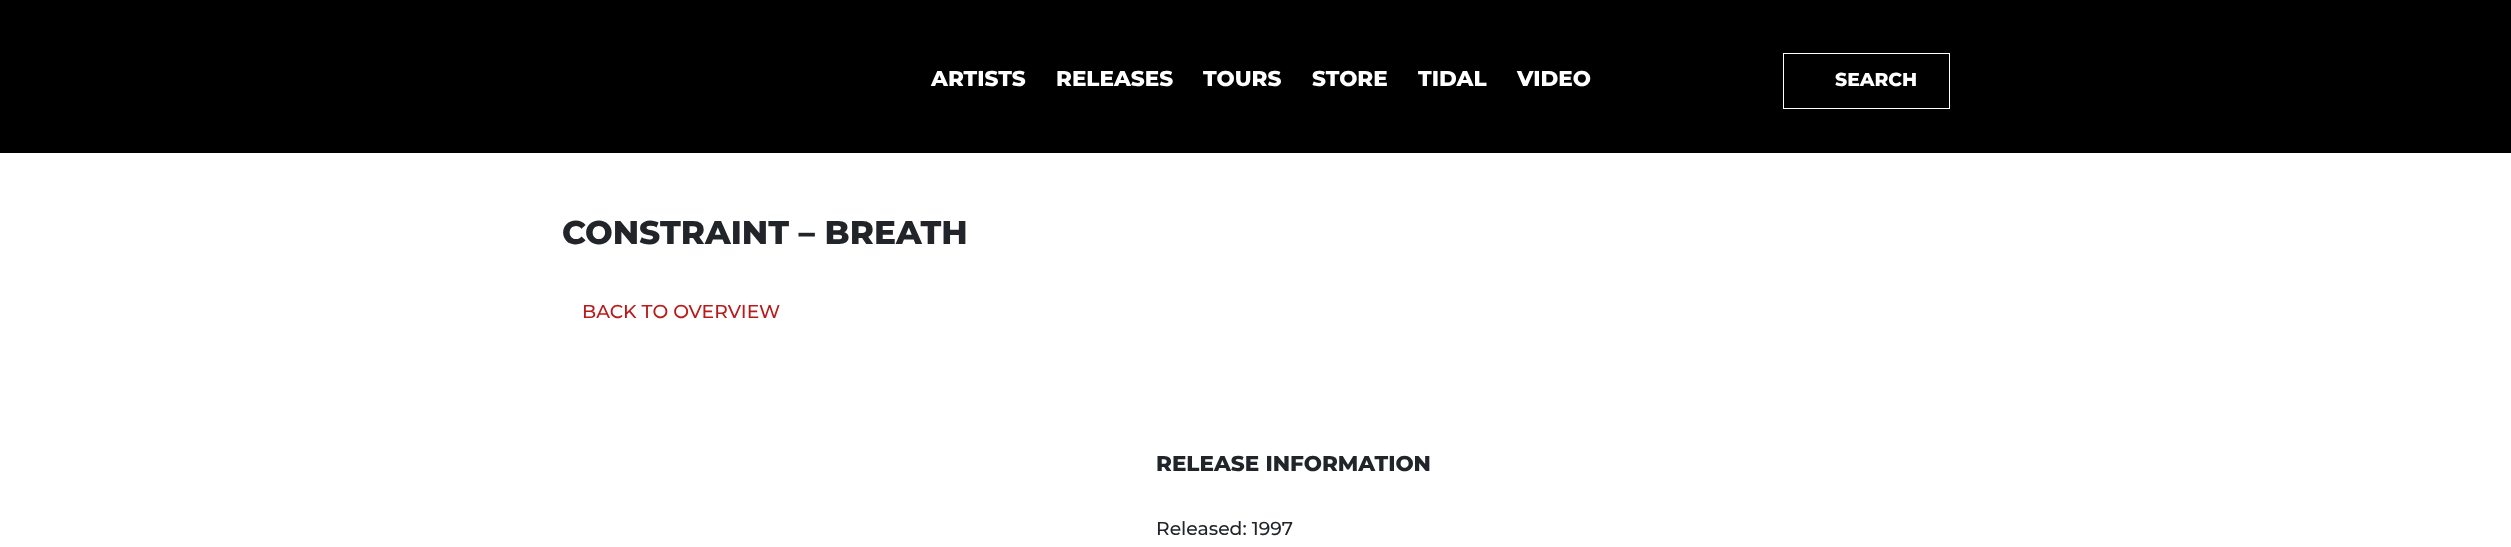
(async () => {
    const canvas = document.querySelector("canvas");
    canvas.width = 2511;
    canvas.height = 547;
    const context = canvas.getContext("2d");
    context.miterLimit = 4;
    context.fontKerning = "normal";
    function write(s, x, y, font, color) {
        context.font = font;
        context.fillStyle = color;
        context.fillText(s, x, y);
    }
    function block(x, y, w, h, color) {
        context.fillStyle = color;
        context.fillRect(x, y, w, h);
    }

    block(0, 0, 2511, 547, "rgb(255, 255, 255)");
    block(0, 0, 2511, 153, "rgb(0, 0, 0)");
    write("ARTISTS", 931, 86, "800 21.5px Montserrat", "rgb(255, 255, 255)");
    write("RELEASES", 1056, 86, "800 21.5px Montserrat", "rgb(255, 255, 255)");
    write("TOURS", 1203, 86, "800 21.5px Montserrat", "rgb(255, 255, 255)");
    write("STORE", 1312, 86, "800 21.5px Montserrat", "rgb(255, 255, 255)");
    write("TIDAL", 1418, 86, "800 21.5px Montserrat", "rgb(255, 255, 255)");
    write("VIDEO", 1517, 86, "800 21.5px Montserrat", "rgb(255, 255, 255)");
    context.strokeStyle = "rgb(255, 255, 255)";
    context.strokeRect(1783.5, 53.5, 166, 55);
    write("SEARCH", 1835, 86, "800 18.75px Montserrat", "rgb(255, 255, 255)");
    write("CONSTRAINT – BREATH", 562, 244, "800 32.75px Montserrat", "rgb(33, 37, 41)");
    write("BACK TO OVERVIEW", 582, 318, "500 18.75px Montserrat", "rgb(183, 28, 28)");
    write("RELEASE INFORMATION", 1156, 471, "800 21.5px Montserrat", "rgb(33, 37, 41)");
    write("Released: 1997", 1156, 535, "500 18.75px Montserrat", "rgb(33, 37, 41)");
})();
